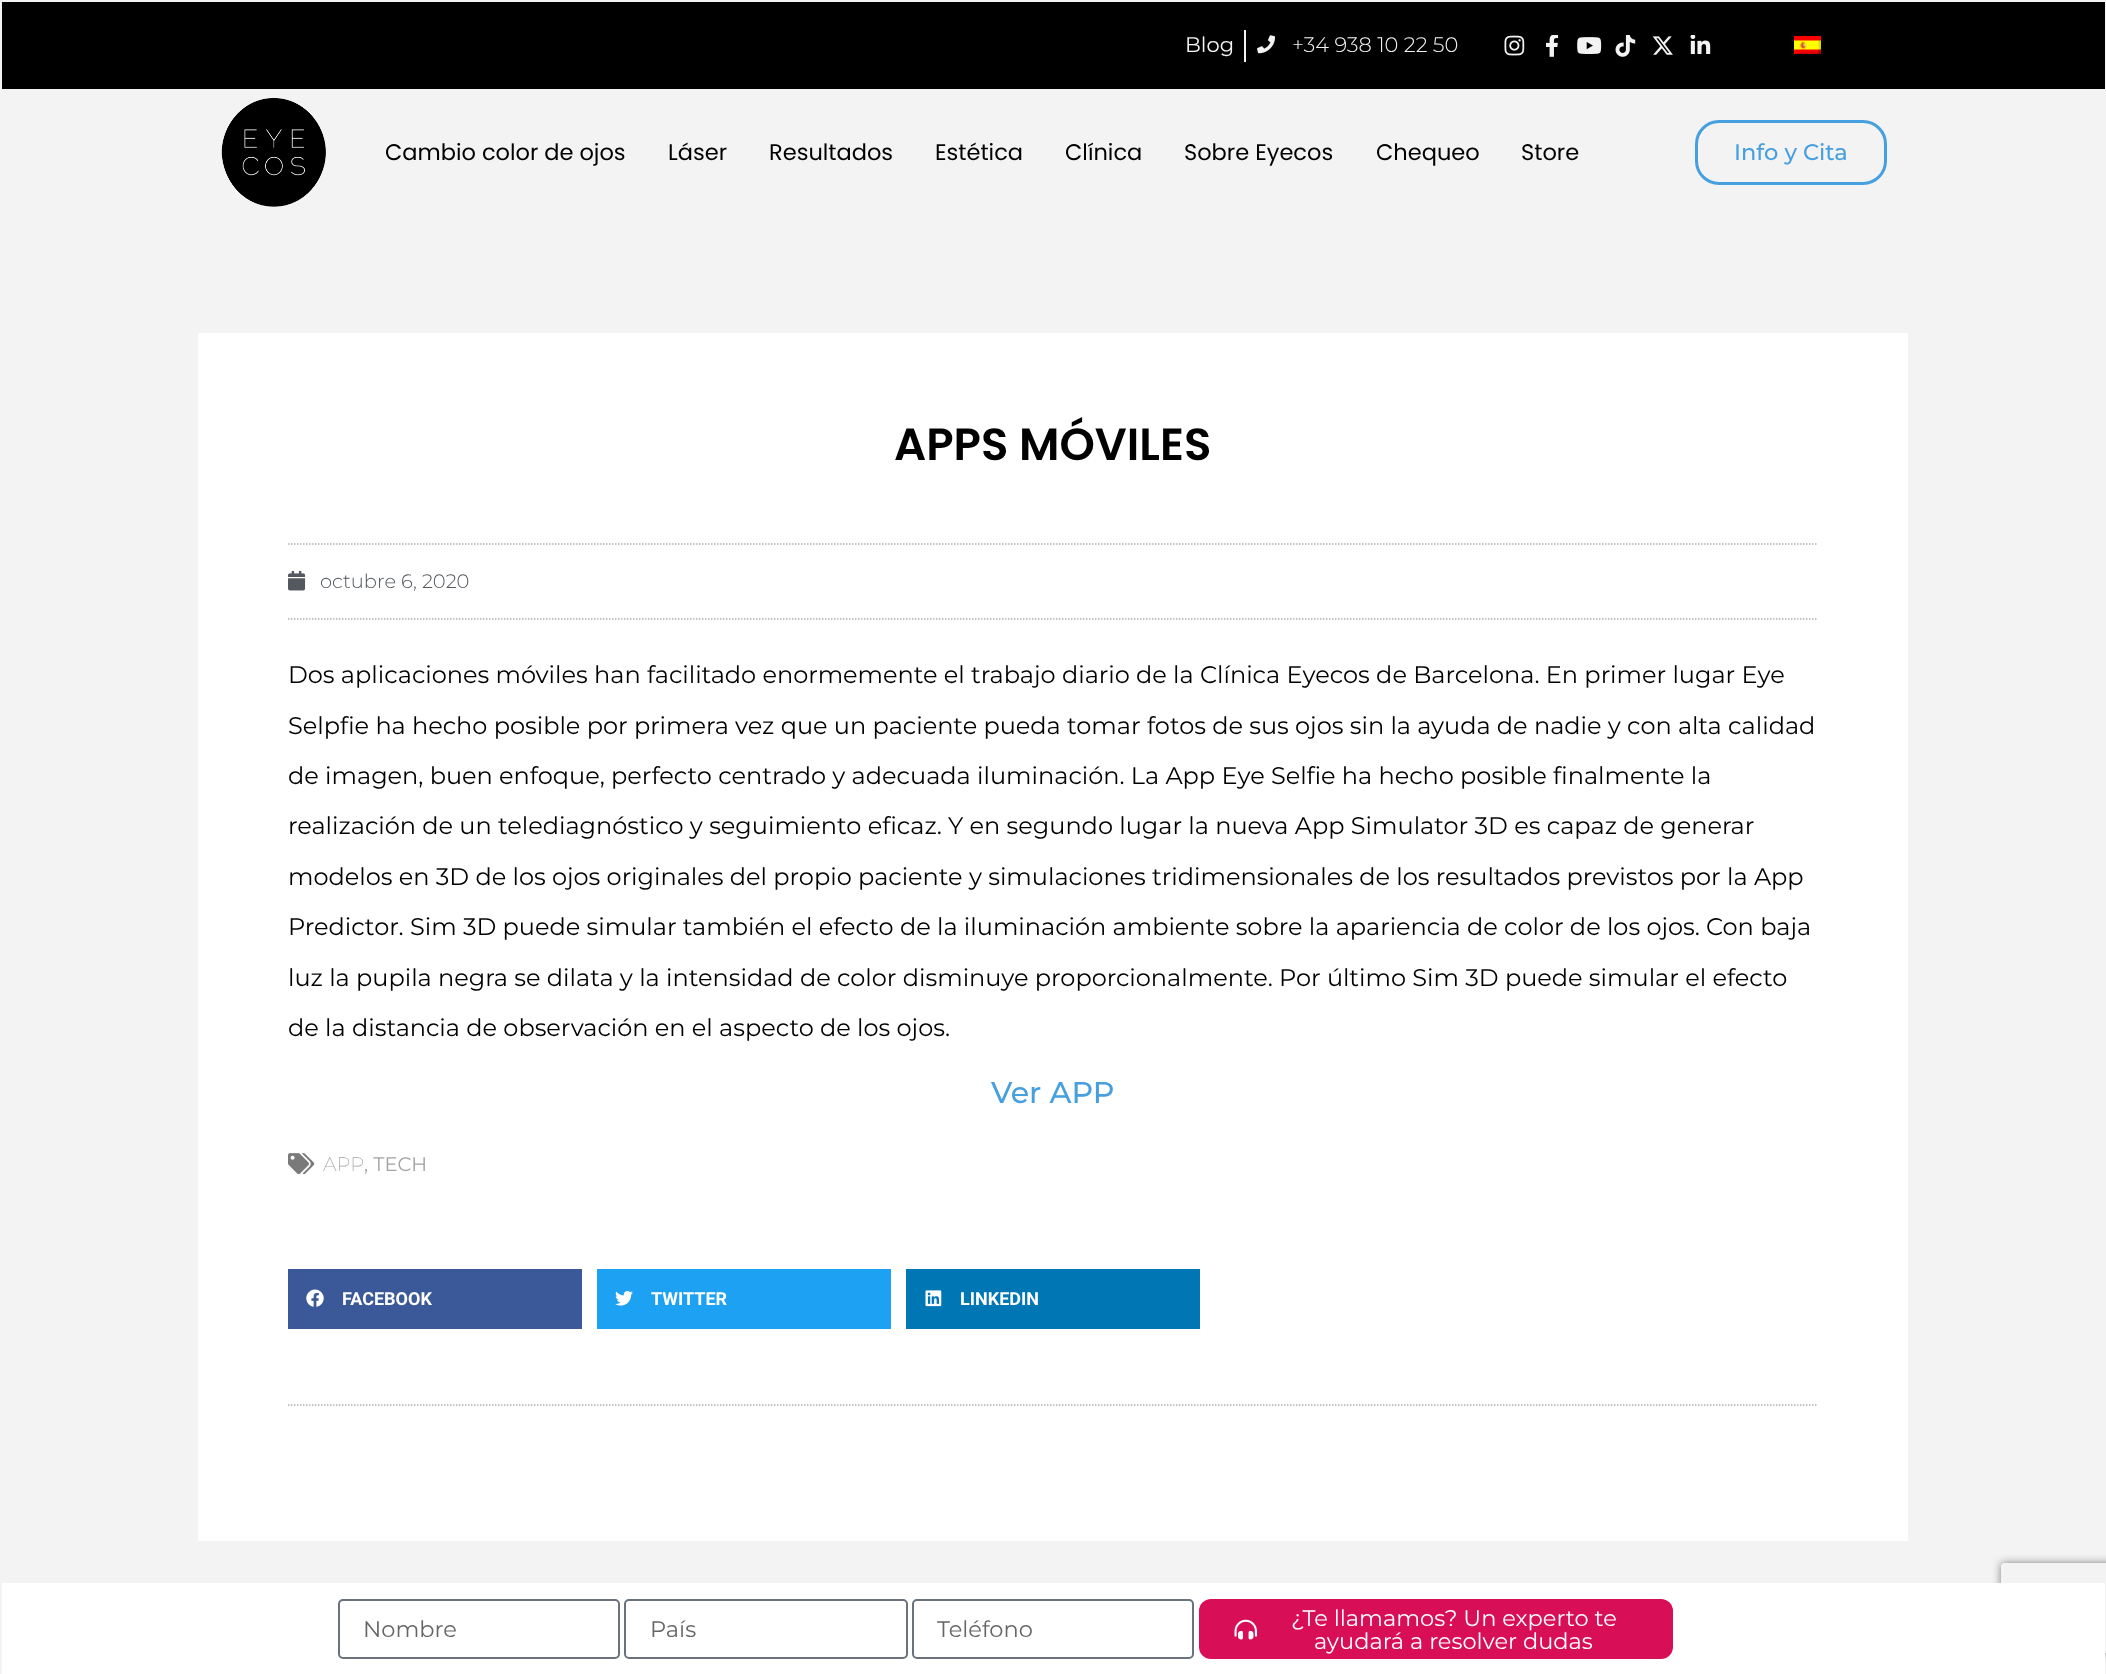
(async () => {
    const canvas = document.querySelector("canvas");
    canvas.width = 2106;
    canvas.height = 1674;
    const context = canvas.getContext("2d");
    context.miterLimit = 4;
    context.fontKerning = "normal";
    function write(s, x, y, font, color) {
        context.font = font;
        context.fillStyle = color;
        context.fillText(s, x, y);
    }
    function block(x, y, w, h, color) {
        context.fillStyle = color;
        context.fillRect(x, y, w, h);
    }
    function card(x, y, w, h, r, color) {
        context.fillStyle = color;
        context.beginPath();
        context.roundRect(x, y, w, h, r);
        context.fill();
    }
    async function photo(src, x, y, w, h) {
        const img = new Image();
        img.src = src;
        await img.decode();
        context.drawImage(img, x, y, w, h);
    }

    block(0, 0, 2106, 1674, "rgb(244, 243, 243)");
    block(2, 2, 2103, 87, "rgb(0, 0, 0)");
    write("Blog", 1185, 52, "21px Montserrat", "rgb(244, 243, 243)");
    block(1244, 30, 2, 32, "rgb(244, 243, 243)");
    await photo("media/1.png", 1257, 35, 18, 19);
    write("+34 938 10 22 50", 1292, 52, "300 21px Montserrat", "rgb(244, 243, 243)");
    await photo("media/2.png", 1504, 35, 21, 21);
    await photo("media/3.png", 1546, 35, 13, 22);
    await photo("media/4.png", 1577, 37, 25, 17);
    await photo("media/5.png", 1615, 35, 21, 22);
    await photo("media/6.png", 1652, 36, 21, 19);
    await photo("media/7.png", 1690, 35, 21, 19);
    await photo("media/8.png", 1794, 36, 27, 18);
    await photo("media/9.png", 221, 97, 105, 110);
    write("Cambio color de ojos", 385, 160, "22.5px Poppins", "rgb(0, 0, 0)");
    write("Láser", 668, 160, "22.5px Poppins", "rgb(0, 0, 0)");
    write("Resultados", 769, 160, "22.5px Poppins", "rgb(0, 0, 0)");
    write("Estética", 935, 160, "22.5px Poppins", "rgb(0, 0, 0)");
    write("Clínica", 1065, 160, "22.5px Poppins", "rgb(0, 0, 0)");
    write("Sobre Eyecos", 1184, 160, "22.5px Poppins", "rgb(0, 0, 0)");
    write("Chequeo", 1376, 160, "22.5px Poppins", "rgb(0, 0, 0)");
    write("Store", 1521, 160, "22.5px Poppins", "rgb(0, 0, 0)");
    context.beginPath();
    context.roundRect(1696.5, 121.5, 189, 62, 22.5);
    context.strokeStyle = "rgb(70, 159, 223)";
    context.lineWidth = 3;
    context.stroke();
    write("Info y Cita", 1734, 160, "500 22.5px Montserrat", "rgb(70, 159, 223)");
    block(198, 333, 1710, 1208, "rgb(255, 255, 255)");
    write("APPS MÓVILES", 894, 460, "600 45px Poppins", "rgb(0, 0, 0)");
    context.beginPath();
    context.moveTo(288, 544);
    context.lineTo(1818, 544);
    context.strokeStyle = "rgb(175, 175, 175)";
    context.lineWidth = 1.5;
    context.setLineDash([1.5, 1.5]);
    context.stroke();
    context.beginPath();
    context.moveTo(288, 619);
    context.lineTo(1818, 619);
    context.stroke();
    await photo("media/10.png", 288, 570, 18, 21);
    write("octubre 6, 2020", 320, 588, "300 19.5px Montserrat", "rgb(84, 89, 95)");
    write("Dos aplicaciones móviles han facilitado enormemente el trabajo diario de la Clínica Eyecos de Barcelona. En primer lugar Eye", 288, 683, "24px Montserrat", "rgb(0, 0, 0)");
    write("Selpfie ha hecho posible por primera vez que un paciente pueda tomar fotos de sus ojos sin la ayuda de nadie y con alta calidad", 288, 734, "24px Montserrat", "rgb(0, 0, 0)");
    write("de imagen, buen enfoque, perfecto centrado y adecuada iluminación. La App Eye Selfie ha hecho posible finalmente la", 288, 784, "24px Montserrat", "rgb(0, 0, 0)");
    write("realización de un telediagnóstico y seguimiento eficaz. Y en segundo lugar la nueva App Simulator 3D es capaz de generar", 288, 834, "24px Montserrat", "rgb(0, 0, 0)");
    write("modelos en 3D de los ojos originales del propio paciente y simulaciones tridimensionales de los resultados previstos por la App", 288, 885, "24px Montserrat", "rgb(0, 0, 0)");
    write("Predictor. Sim 3D puede simular también el efecto de la iluminación ambiente sobre la apariencia de color de los ojos. Con baja", 288, 935, "24px Montserrat", "rgb(0, 0, 0)");
    write("luz la pupila negra se dilata y la intensidad de color disminuye proporcionalmente. Por último Sim 3D puede simular el efecto", 288, 986, "24px Montserrat", "rgb(0, 0, 0)");
    write("de la distancia de observación en el aspecto de los ojos.", 288, 1036, "24px Montserrat", "rgb(0, 0, 0)");
    write("Ver APP", 991, 1103, "500 30px Montserrat", "rgb(70, 159, 223)");
    await photo("media/11.png", 288, 1153, 27, 22);
    write("APP", 323, 1171, "200 19.5px Montserrat", "rgb(163, 163, 163)");
    write(", TECH", 364, 1171, "19.5px Montserrat", "rgb(163, 163, 163)");
    block(288, 1269, 294, 60, "rgb(59, 89, 152)");
    await photo("media/12.png", 306, 1289, 18, 18);
    write("FACEBOOK", 342, 1305, "bold 18px Roboto", "rgb(255, 255, 255)");
    block(597, 1269, 294, 60, "rgb(29, 161, 242)");
    await photo("media/13.png", 615, 1290, 18, 16);
    write("TWITTER", 651, 1305, "bold 18px Roboto", "rgb(255, 255, 255)");
    block(906, 1269, 294, 60, "rgb(0, 119, 181)");
    await photo("media/14.png", 925, 1290, 17, 17);
    write("LINKEDIN", 960, 1305, "bold 18px Roboto", "rgb(255, 255, 255)");
    context.beginPath();
    context.moveTo(288, 1405);
    context.lineTo(1818, 1405);
    context.stroke();
    context.save();
    context.beginPath();
    context.moveTo(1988, 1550);
    context.lineTo(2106, 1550);
    context.lineTo(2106, 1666);
    context.lineTo(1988, 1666);
    context.closePath();
    context.moveTo(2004, 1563);
    context.lineTo(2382, 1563);
    context.bezierCurveTo(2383.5, 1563, 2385, 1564.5, 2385, 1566);
    context.lineTo(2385, 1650);
    context.bezierCurveTo(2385, 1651.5, 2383.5, 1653, 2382, 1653);
    context.lineTo(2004, 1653);
    context.bezierCurveTo(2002.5, 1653, 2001, 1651.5, 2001, 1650);
    context.lineTo(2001, 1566);
    context.bezierCurveTo(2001, 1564.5, 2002.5, 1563, 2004, 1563);
    context.closePath();
    context.clip("evenodd");
    context.fillStyle = "rgb(128, 128, 128)";
    context.filter = "blur(4px)";
    context.beginPath();
    context.roundRect(2001, 1563, 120, 90, 3);
    context.fill();
    context.filter = "none";
    context.restore();
    block(2, 1583, 2103, 91, "rgb(255, 255, 255)");
    context.beginPath();
    context.roundRect(339, 1600, 280, 58, 4);
    context.strokeStyle = "rgb(105, 114, 125)";
    context.lineWidth = 2;
    context.setLineDash([]);
    context.stroke();
    write("Nombre", 363, 1637, "22.5px Montserrat", "rgb(102, 102, 102)");
    context.beginPath();
    context.roundRect(625, 1600, 282, 58, 4);
    context.stroke();
    write("País", 650, 1637, "22.5px Montserrat", "rgb(102, 102, 102)");
    context.beginPath();
    context.roundRect(913, 1600, 280, 58, 4);
    context.stroke();
    write("Teléfono", 937, 1637, "22.5px Montserrat", "rgb(102, 102, 102)");
    card(1199, 1599, 474, 60, 12, "rgb(216, 15, 86)");
    await photo("media/15.png", 1234, 1619, 23, 21);
    write("¿Te llamamos? Un experto te", 1291, 1626, "22.5px Montserrat", "rgb(255, 255, 255)");
    write("ayudará a resolver dudas", 1314, 1649, "22.5px Montserrat", "rgb(255, 255, 255)");
})();
